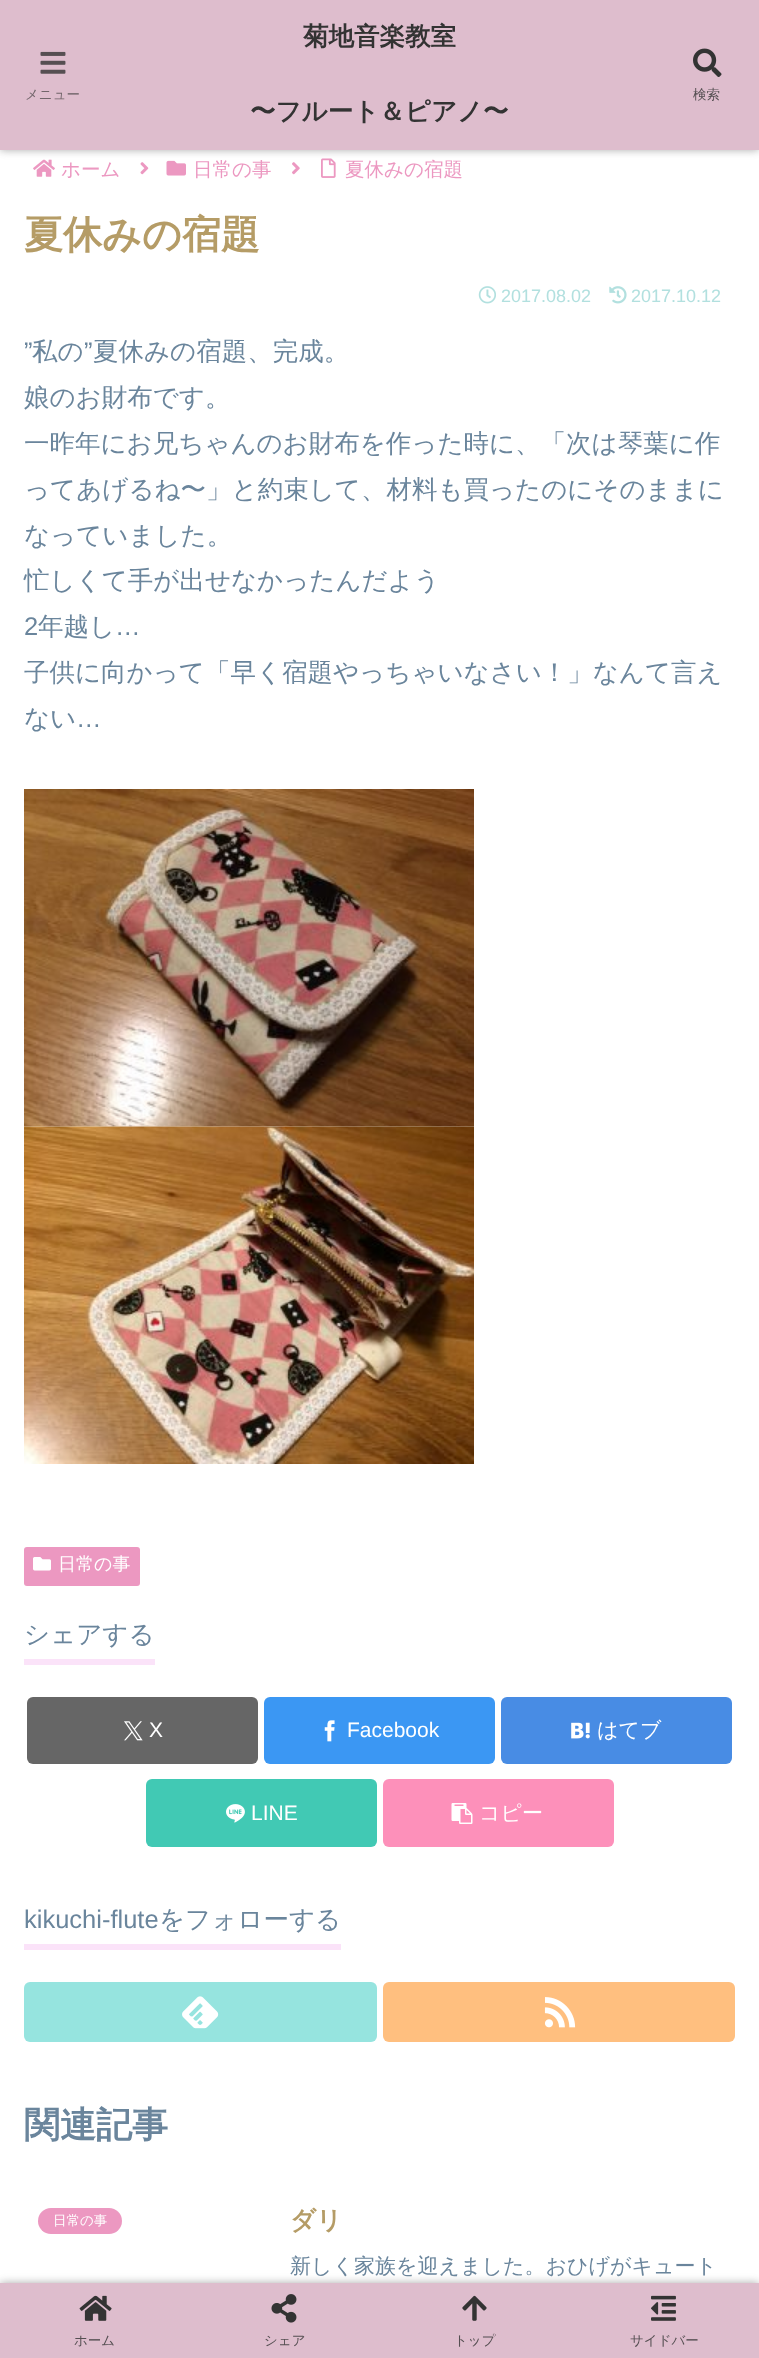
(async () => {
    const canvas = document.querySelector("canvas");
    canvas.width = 759;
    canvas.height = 2358;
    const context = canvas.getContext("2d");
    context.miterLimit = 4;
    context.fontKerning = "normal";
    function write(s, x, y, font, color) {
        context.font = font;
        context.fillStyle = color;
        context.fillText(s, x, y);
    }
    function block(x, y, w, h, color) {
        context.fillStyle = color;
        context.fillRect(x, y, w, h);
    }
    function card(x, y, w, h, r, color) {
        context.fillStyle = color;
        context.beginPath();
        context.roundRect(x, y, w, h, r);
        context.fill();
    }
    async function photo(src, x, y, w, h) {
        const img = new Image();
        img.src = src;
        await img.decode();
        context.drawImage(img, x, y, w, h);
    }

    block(0, 0, 759, 2358, "rgb(255, 255, 255)");
    await photo("media/3.png", 33, 159, 22, 18);
    await photo("media/4.png", 140, 162, 9, 13);
    await photo("media/5.png", 166, 160, 20, 16);
    await photo("media/6.png", 292, 162, 8, 13);
    await photo("media/7.png", 321, 158, 15, 20);
    context.fillStyle = "rgb(169, 169, 169)";
    context.filter = "blur(4px)";
    context.beginPath();
    context.rect(0, 0, 759, 150);
    context.fill();
    context.filter = "none";
    block(0, 0, 759, 150, "rgb(222, 189, 205)");
    await photo("media/1.png", 40, 51, 26, 23);
    write("メニュー", 25, 99, "500 13.5px WenQuanYi Zen Hei", "rgb(113, 101, 106)");
    write("菊地音楽教室", 303, 45, "bold 25.5px WenQuanYi Zen Hei", "rgb(51, 51, 51)");
    write("〜フルート＆ピアノ〜", 250, 120, "bold 25.5px WenQuanYi Zen Hei", "rgb(51, 51, 51)");
    await photo("media/2.png", 693, 48, 29, 29);
    write("検索", 693, 99, "500 13.5px WenQuanYi Zen Hei", "rgb(85, 79, 82)");
    write("ホーム", 61, 176, "500 19.5px WenQuanYi Zen Hei", "rgb(236, 152, 193)");
    write("日常の事", 193, 176, "500 19.5px WenQuanYi Zen Hei", "rgb(236, 152, 193)");
    write("夏休みの宿題", 345, 176, "500 19.5px WenQuanYi Zen Hei", "rgb(236, 152, 193)");
    write("夏休みの宿題", 24, 248, "bold 39px WenQuanYi Zen Hei", "rgb(181, 156, 102)");
    await photo("media/8.png", 478, 286, 18, 18);
    write("2017.08.02", 501, 302, "18px Liberation Sans", "rgb(178, 224, 223)");
    await photo("media/9.png", 609, 286, 18, 18);
    write("2017.10.12", 631, 302, "18px Liberation Sans", "rgb(178, 224, 223)");
    write("”", 24, 360, "25.5px Liberation Sans", "rgb(106, 133, 156)");
    write("私の", 32, 360, "500 25.5px WenQuanYi Zen Hei", "rgb(106, 133, 156)");
    write("”", 84, 360, "25.5px Liberation Sans", "rgb(106, 133, 156)");
    write("夏休みの宿題、完成。", 93, 360, "500 25.5px WenQuanYi Zen Hei", "rgb(106, 133, 156)");
    write("娘のお財布です。", 24, 406, "500 25.5px WenQuanYi Zen Hei", "rgb(106, 133, 156)");
    write("一昨年にお兄ちゃんのお財布を作った時に、「次は琴葉に作", 24, 452, "500 25.5px WenQuanYi Zen Hei", "rgb(106, 133, 156)");
    write("ってあげるね〜」と約束して、材料も買ったのにそのままに", 24, 498, "500 25.5px WenQuanYi Zen Hei", "rgb(106, 133, 156)");
    write("なっていました。", 24, 544, "500 25.5px WenQuanYi Zen Hei", "rgb(106, 133, 156)");
    write("忙しくて手が出せなかったんだよう", 24, 589, "500 25.5px WenQuanYi Zen Hei", "rgb(106, 133, 156)");
    write("2", 24, 635, "25.5px Liberation Sans", "rgb(106, 133, 156)");
    write("年越し", 38, 635, "500 25.5px WenQuanYi Zen Hei", "rgb(106, 133, 156)");
    write("…", 115, 635, "25.5px Liberation Sans", "rgb(106, 133, 156)");
    write("子供に向かって「早く宿題やっちゃいなさい！」なんて言え", 24, 681, "500 25.5px WenQuanYi Zen Hei", "rgb(106, 133, 156)");
    write("ない", 24, 727, "500 25.5px WenQuanYi Zen Hei", "rgb(106, 133, 156)");
    write("…", 76, 727, "25.5px Liberation Sans", "rgb(106, 133, 156)");
    await photo("media/10.png", 24, 789, 450, 338);
    await photo("media/11.png", 24, 1126, 450, 338);
    card(24, 1547, 116, 39, 3, "rgb(236, 152, 193)");
    await photo("media/12.png", 33, 1557, 18, 14);
    write("日常の事", 58, 1570, "500 18px WenQuanYi Zen Hei", "rgb(255, 255, 255)");
    block(24, 1659, 131, 6, "rgb(251, 227, 249)");
    write("シェアする", 24, 1643, "500 25.5px WenQuanYi Zen Hei", "rgb(106, 133, 156)");
    card(27, 1697, 231, 67, 6, "rgb(102, 102, 102)");
    await photo("media/13.png", 124, 1721, 19, 20);
    write("X", 149, 1737, "21px Liberation Sans", "rgb(255, 255, 255)");
    card(264, 1697, 231, 67, 6, "rgb(59, 151, 243)");
    await photo("media/14.png", 324, 1720, 11, 22);
    write("Facebook", 347, 1737, "21px Liberation Sans", "rgb(255, 255, 255)");
    card(501, 1697, 231, 67, 6, "rgb(72, 140, 228)");
    await photo("media/15.png", 571, 1722, 19, 17);
    write("はてブ", 597, 1737, "500 21px WenQuanYi Zen Hei", "rgb(255, 255, 255)");
    card(146, 1779, 231, 68, 6, "rgb(65, 201, 180)");
    await photo("media/16.png", 226, 1804, 19, 19);
    write("LINE", 251, 1820, "21px Liberation Sans", "rgb(255, 255, 255)");
    card(383, 1779, 231, 68, 6, "rgb(253, 144, 186)");
    await photo("media/17.png", 451, 1803, 22, 21);
    write("コピー", 479, 1820, "500 21px WenQuanYi Zen Hei", "rgb(255, 255, 255)");
    block(24, 1944, 317, 6, "rgb(251, 227, 249)");
    write("kikuchi-flute", 24, 1928, "25.5px Liberation Sans", "rgb(106, 133, 156)");
    write("をフォローする", 159, 1928, "500 25.5px WenQuanYi Zen Hei", "rgb(106, 133, 156)");
    card(24, 1982, 353, 60, 6, "rgb(150, 228, 223)");
    await photo("media/18.png", 182, 1996, 37, 33);
    card(383, 1982, 352, 60, 6, "rgb(255, 191, 127)");
    await photo("media/19.png", 544, 1997, 32, 31);
    write("関連記事", 24, 2137, "bold 36px WenQuanYi Zen Hei", "rgb(106, 133, 156)");
    card(38, 2208, 84, 26, 13, "rgb(236, 152, 193)");
    write("日常の事", 53, 2225, "500 13.5px WenQuanYi Zen Hei", "rgb(255, 255, 255)");
    write("ダリ", 290, 2229, "bold 25.5px WenQuanYi Zen Hei", "rgb(181, 156, 102)");
    write("新しく家族を迎えました。おひげがキュート", 290, 2273, "500 21px WenQuanYi Zen Hei", "rgb(106, 133, 156)");
    context.fillStyle = "rgb(169, 169, 169)";
    context.filter = "blur(4px)";
    context.beginPath();
    context.rect(0, 2283, 759, 75);
    context.fill();
    context.filter = "none";
    block(0, 2283, 759, 75, "rgb(222, 189, 205)");
    await photo("media/20.png", 79, 2295, 33, 26);
    write("ホーム", 74, 2345, "500 13.5px WenQuanYi Zen Hei", "rgb(85, 79, 82)");
    await photo("media/21.png", 271, 2294, 26, 29);
    write("シェア", 264, 2345, "500 13.5px WenQuanYi Zen Hei", "rgb(85, 79, 82)");
    await photo("media/22.png", 462, 2295, 25, 26);
    write("トップ", 454, 2345, "500 13.5px WenQuanYi Zen Hei", "rgb(85, 79, 82)");
    await photo("media/23.png", 651, 2295, 25, 26);
    write("サイドバー", 630, 2345, "500 13.5px WenQuanYi Zen Hei", "rgb(85, 79, 82)");
})();
